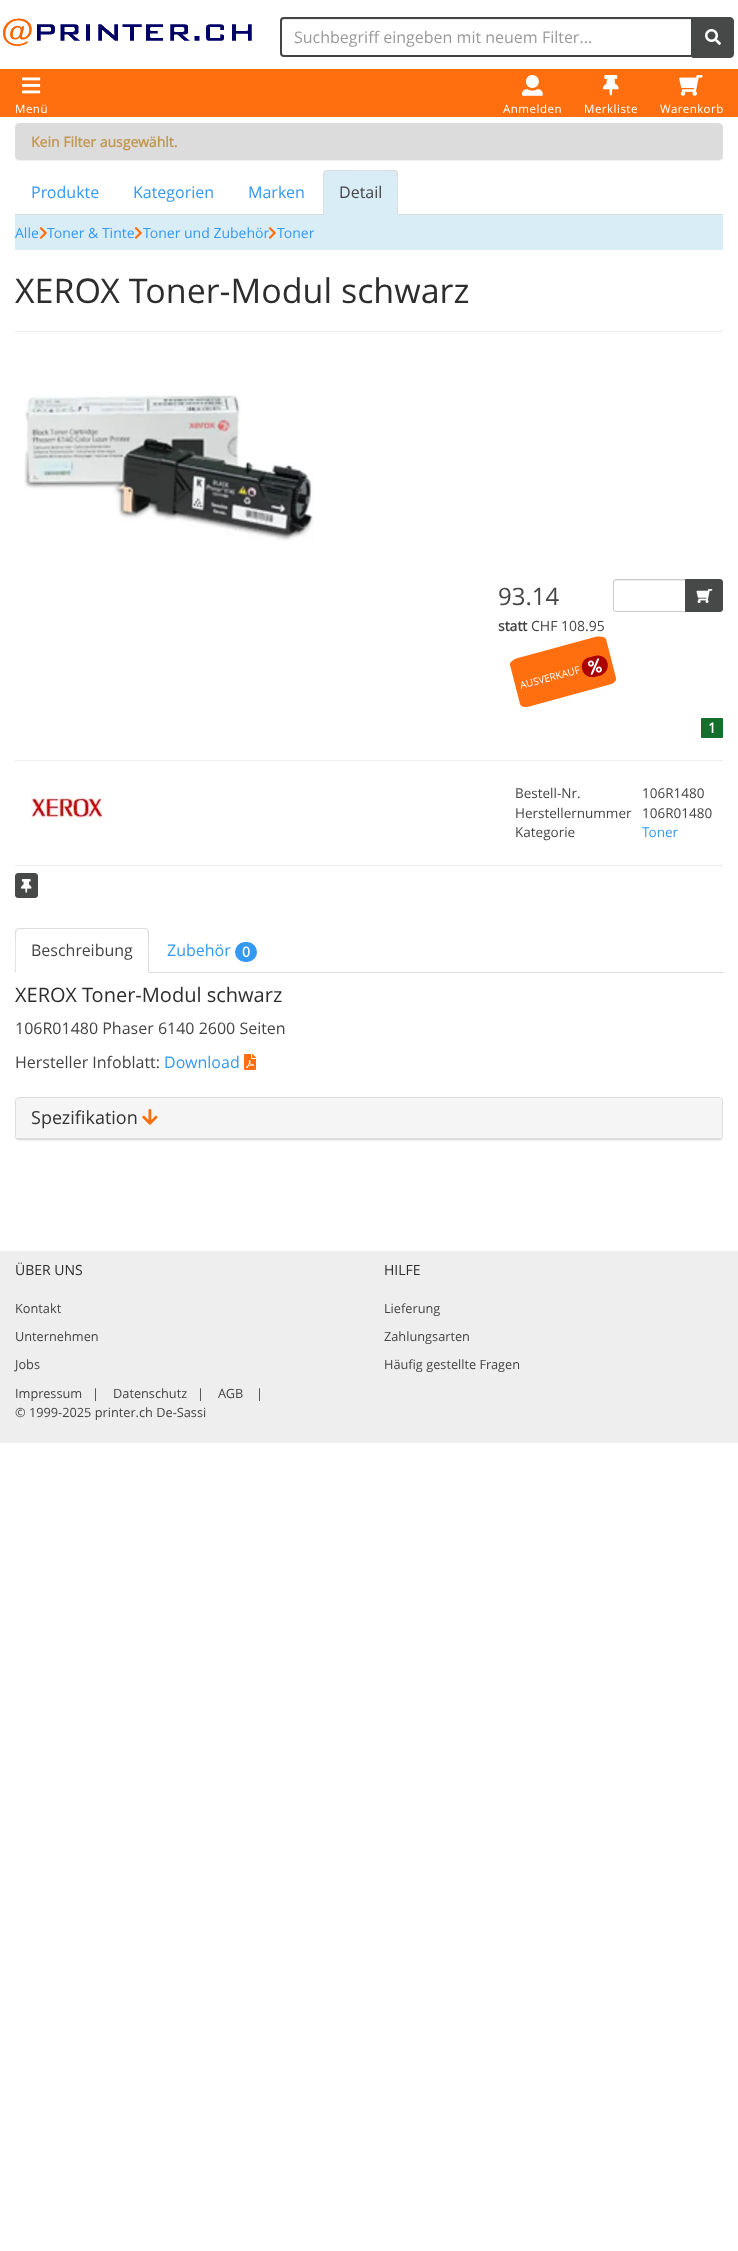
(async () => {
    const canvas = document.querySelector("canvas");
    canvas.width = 738;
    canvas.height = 2251;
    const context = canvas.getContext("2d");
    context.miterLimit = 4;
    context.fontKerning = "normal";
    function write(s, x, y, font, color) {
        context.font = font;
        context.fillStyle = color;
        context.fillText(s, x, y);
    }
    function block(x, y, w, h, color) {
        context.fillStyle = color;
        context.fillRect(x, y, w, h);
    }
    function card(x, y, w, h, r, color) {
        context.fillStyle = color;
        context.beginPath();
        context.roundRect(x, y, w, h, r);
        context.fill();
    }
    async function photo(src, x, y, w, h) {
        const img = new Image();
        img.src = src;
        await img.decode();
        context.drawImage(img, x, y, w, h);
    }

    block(0, 0, 738, 2251, "rgb(255, 255, 255)");
    await photo("media/1.png", 3, 18, 249, 28);
    context.fillStyle = "rgb(236, 236, 236)";
    context.beginPath();
    context.moveTo(284, 20);
    context.lineTo(691, 20);
    context.lineTo(691, 19);
    context.lineTo(284, 19);
    context.bezierCurveTo(282, 19, 282, 21, 282, 22);
    context.bezierCurveTo(282, 21, 283, 20, 284, 20);
    context.closePath();
    context.fill();
    context.beginPath();
    context.roundRect(281, 18, 411, 38, [3, 0, 0, 3]);
    context.strokeStyle = "rgb(68, 68, 68)";
    context.lineWidth = 2;
    context.stroke();
    write("Suchbegriff eingeben mit neuem Filter...", 294, 43, "16px Open Sans", "rgb(153, 153, 153)");
    context.fillStyle = "rgb(71, 73, 73)";
    context.beginPath();
    context.roundRect(692.5, 17.5, 41, 40, [0, 3.5, 3.5, 0]);
    context.fill();
    context.strokeStyle = "rgb(71, 73, 73)";
    context.lineWidth = 1;
    context.stroke();
    await photo("media/2.png", 705, 29, 16, 16);
    block(0, 69, 738, 48, "rgb(255, 111, 15)");
    await photo("media/3.png", 22, 77, 19, 17);
    context.letterSpacing = "0.5px";
    write("Menü", 15, 113, "11.5px Open Sans", "rgb(255, 255, 255)");
    await photo("media/4.png", 522, 75, 21, 21);
    write("Anmelden", 503, 113, "11.5px Open Sans", "rgb(255, 255, 255)");
    await photo("media/5.png", 603, 75, 16, 21);
    write("Merkliste", 584, 113, "11.5px Open Sans", "rgb(255, 255, 255)");
    await photo("media/6.png", 679, 75, 24, 21);
    write("Warenkorb", 660, 113, "11.5px Open Sans", "rgb(255, 255, 255)");
    context.fillStyle = "rgba(0, 0, 0, 0.05)";
    context.filter = "blur(0.5px)";
    context.beginPath();
    context.roundRect(15, 124, 708, 37, 4);
    context.fill();
    context.filter = "none";
    context.beginPath();
    context.roundRect(15.5, 123.5, 707, 36, 3.5);
    context.strokeStyle = "rgb(221, 221, 221)";
    context.stroke();
    context.fillStyle = "rgb(220, 220, 220)";
    context.beginPath();
    context.roundRect(16, 124, 706, 35, [3, 3, 0, 0]);
    context.fill();
    context.letterSpacing = "0px";
    write("Kein Filter ausgewählt.", 31, 147, "bold 14px Open Sans", "rgb(192, 152, 83)");
    block(15, 214, 708, 1, "rgb(221, 221, 221)");
    write("Produkte", 31, 198, "16px Open Sans", "rgb(51, 153, 243)");
    write("Kategorien", 133, 198, "16px Open Sans", "rgb(51, 153, 243)");
    write("Marken", 248, 198, "16px Open Sans", "rgb(51, 153, 243)");
    context.fillStyle = "rgb(217, 237, 247)";
    context.beginPath();
    context.roundRect(323, 170, 75, 45, [4, 4, 0, 0]);
    context.fill();
    context.fillStyle = "rgb(221, 221, 221)";
    context.beginPath();
    context.moveTo(327, 170);
    context.lineTo(324, 171);
    context.lineTo(325, 172);
    context.lineTo(327, 171);
    context.lineTo(338, 171);
    context.bezierCurveTo(345, 171, 394, 170, 396, 172);
    context.lineTo(397, 171);
    context.lineTo(394, 170);
    context.closePath();
    context.fill();
    context.beginPath();
    context.moveTo(398, 215);
    context.lineTo(398, 174);
    context.bezierCurveTo(398, 173, 398, 172, 397, 171);
    context.lineTo(396, 172);
    context.bezierCurveTo(398, 174, 397, 209, 397, 214);
    context.closePath();
    context.fill();
    context.beginPath();
    context.moveTo(323, 215);
    context.lineTo(324, 214);
    context.bezierCurveTo(324, 209, 323, 174, 325, 172);
    context.lineTo(324, 171);
    context.lineTo(323, 174);
    context.closePath();
    context.fill();
    write("Detail", 339, 198, "16px Open Sans", "rgb(68, 68, 68)");
    block(15, 215, 708, 35, "rgb(217, 237, 247)");
    write("Alle", 15, 238, "14px Open Sans", "rgb(51, 153, 243)");
    await photo("media/7.png", 39, 227, 8, 12);
    write("Toner & Tinte", 47, 238, "14px Open Sans", "rgb(51, 153, 243)");
    await photo("media/7.png", 134, 227, 8, 12);
    write("Toner und Zubehör", 143, 238, "14px Open Sans", "rgb(51, 153, 243)");
    await photo("media/8.png", 268, 227, 8, 12);
    write("Toner", 277, 238, "14px Open Sans", "rgb(51, 153, 243)");
    write("XEROX Toner-Modul schwarz", 15, 303, "34px Open Sans", "rgb(45, 45, 45)");
    block(15, 331, 708, 1, "rgb(238, 238, 238)");
    await photo("media/9.png", 24, 394, 291, 147);
    write("93.14", 498, 605, "24px Open Sans", "rgb(68, 68, 68)");
    write("statt", 498, 631, "bold 14px Open Sans", "rgb(68, 68, 68)");
    write("CHF 108.95", 531, 631, "14px Open Sans", "rgb(68, 68, 68)");
    context.fillStyle = "rgb(255, 111, 15)";
    context.beginPath();
    context.moveTo(518, 658);
    context.lineTo(595, 637);
    context.bezierCurveTo(601, 636, 605, 637, 606, 639);
    context.lineTo(616, 678);
    context.bezierCurveTo(617, 681, 613, 684, 608, 685);
    context.lineTo(531, 706);
    context.bezierCurveTo(525, 708, 521, 707, 520, 704);
    context.lineTo(510, 665);
    context.bezierCurveTo(509, 663, 513, 659, 518, 658);
    context.closePath();
    context.fill();
    context.font = "10px Open Sans";
    context.fillStyle = "rgb(255, 255, 255)";
    context.save();
    context.translate(521, 689);
    context.rotate(-15 * Math.PI / 180);
    context.fillText("AUSVERKAUF", 0, 0);
    context.restore();
    context.fillStyle = "rgb(170, 0, 0)";
    context.beginPath();
    context.moveTo(589, 657.5);
    context.bezierCurveTo(592.5, 656.5, 596, 655, 599, 655.5);
    context.bezierCurveTo(610, 657, 611, 671.5, 600.5, 675.5);
    context.bezierCurveTo(597.5, 676.5, 593.5, 677.5, 590.5, 677);
    context.bezierCurveTo(580, 675.5, 578.5, 660, 589, 657.5);
    context.closePath();
    context.fill();
    await photo("media/10.png", 587, 658, 15, 17);
    context.fillStyle = "rgb(236, 236, 236)";
    context.beginPath();
    context.moveTo(616, 581);
    context.lineTo(685, 581);
    context.lineTo(685, 580);
    context.lineTo(616, 580);
    context.bezierCurveTo(615, 580, 614, 581, 614, 582);
    context.lineTo(614, 583);
    context.bezierCurveTo(614, 582, 615, 581, 616, 581);
    context.closePath();
    context.fill();
    context.beginPath();
    context.roundRect(613.5, 579.5, 72, 32, [2.5, 0, 0, 2.5]);
    context.strokeStyle = "rgb(204, 204, 204)";
    context.stroke();
    context.fillStyle = "rgb(71, 73, 73)";
    context.beginPath();
    context.roundRect(685.5, 579.5, 37, 32, [0, 2.5, 2.5, 0]);
    context.fill();
    context.strokeStyle = "rgb(71, 73, 73)";
    context.stroke();
    await photo("media/11.png", 696, 589, 17, 14);
    card(701, 718, 22, 20, 1, "rgb(22, 110, 44)");
    write("1", 708, 733, "bold 14px Open Sans", "rgb(255, 255, 255)");
    block(15, 760, 708, 1, "rgb(238, 238, 238)");
    await photo("media/12.png", 31, 791, 72, 32);
    write("Bestell-Nr.", 515, 798, "13.5px Open Sans", "rgb(68, 68, 68)");
    write("106R1480", 642, 798, "13.5px Open Sans", "rgb(68, 68, 68)");
    write("Herstellernummer", 515, 818, "13.5px Open Sans", "rgb(68, 68, 68)");
    write("106R01480", 642, 818, "13.5px Open Sans", "rgb(68, 68, 68)");
    write("Kategorie", 515, 837, "13.5px Open Sans", "rgb(68, 68, 68)");
    write("Toner", 642, 837, "13.5px Open Sans", "rgb(51, 153, 243)");
    block(15, 865, 708, 1, "rgb(236, 236, 236)");
    context.fillStyle = "rgb(71, 73, 73)";
    context.beginPath();
    context.roundRect(15.5, 873.5, 22, 24, 2.5);
    context.fill();
    context.stroke();
    await photo("media/13.png", 21, 879, 11, 14);
    block(149, 972, 574, 1, "rgb(221, 221, 221)");
    context.beginPath();
    context.moveTo(19, 928);
    context.lineTo(16, 929);
    context.lineTo(17, 930);
    context.lineTo(19, 929);
    context.lineTo(145, 929);
    context.lineTo(147, 930);
    context.lineTo(148, 929);
    context.lineTo(145, 928);
    context.closePath();
    context.fill();
    context.beginPath();
    context.moveTo(149, 973);
    context.lineTo(149, 932);
    context.bezierCurveTo(149, 931, 148, 930, 148, 929);
    context.lineTo(147, 930);
    context.bezierCurveTo(149, 932, 148, 967, 148, 972);
    context.closePath();
    context.fill();
    context.beginPath();
    context.moveTo(15, 973);
    context.lineTo(16, 972);
    context.bezierCurveTo(16, 967, 15, 932, 17, 930);
    context.lineTo(16, 929);
    context.lineTo(15, 932);
    context.closePath();
    context.fill();
    write("Beschreibung", 31, 956, "16px Open Sans", "rgb(68, 68, 68)");
    write("Zubehör", 167, 956, "16px Open Sans", "rgb(51, 153, 243)");
    card(235, 942, 22, 20, 10, "rgb(51, 153, 243)");
    write("0", 242, 957, "bold 14px Open Sans", "rgb(255, 255, 255)");
    write("XEROX Toner-Modul schwarz", 15, 1002, "20px Open Sans", "rgb(45, 45, 45)");
    write("106R01480 Phaser 6140 2600 Seiten", 15, 1034, "16px Open Sans", "rgb(68, 68, 68)");
    write("Hersteller Infoblatt:", 15, 1068, "16px Open Sans", "rgb(68, 68, 68)");
    write("Download", 164, 1068, "16px Open Sans", "rgb(51, 153, 243)");
    await photo("media/14.png", 244, 1054, 12, 16);
    context.fillStyle = "rgba(0, 0, 0, 0.05)";
    context.filter = "blur(0.5px)";
    context.beginPath();
    context.roundRect(15, 1098, 708, 43, 4);
    context.fill();
    context.filter = "none";
    context.beginPath();
    context.roundRect(15.5, 1097.5, 707, 42, 3.5);
    context.strokeStyle = "rgb(221, 221, 221)";
    context.stroke();
    context.fillStyle = "rgb(245, 245, 245)";
    context.beginPath();
    context.roundRect(16, 1098, 706, 41, [3, 3, 0, 0]);
    context.fill();
    block(16, 1138, 706, 1, "rgb(221, 221, 221)");
    write("Spezifikation", 31, 1124, "18px Open Sans", "rgb(51, 51, 51)");
    await photo("media/15.png", 142, 1109, 16, 16);
    block(0, 1251, 738, 192, "rgb(238, 238, 238)");
    write("ÜBER UNS", 15, 1275, "14px Open Sans", "rgb(45, 45, 45)");
    write("Kontakt", 15, 1313, "12.75px Open Sans", "rgb(68, 68, 68)");
    write("Unternehmen", 15, 1341, "12.75px Open Sans", "rgb(68, 68, 68)");
    write("Jobs", 15, 1369, "12.75px Open Sans", "rgb(68, 68, 68)");
    write("HILFE", 384, 1275, "14px Open Sans", "rgb(45, 45, 45)");
    write("Lieferung", 384, 1313, "12.75px Open Sans", "rgb(68, 68, 68)");
    write("Zahlungsarten", 384, 1341, "12.75px Open Sans", "rgb(68, 68, 68)");
    write("Häufig gestellte Fragen", 384, 1369, "12.75px Open Sans", "rgb(68, 68, 68)");
    write("Impressum", 15, 1398, "12.75px Open Sans", "rgb(68, 68, 68)");
    write("|", 92, 1398, "12.75px Open Sans", "rgb(68, 68, 68)");
    write("Datenschutz", 113, 1398, "12.75px Open Sans", "rgb(68, 68, 68)");
    write("|", 197, 1398, "12.75px Open Sans", "rgb(68, 68, 68)");
    write("AGB", 218, 1398, "12.75px Open Sans", "rgb(68, 68, 68)");
    write("|", 256, 1398, "12.75px Open Sans", "rgb(68, 68, 68)");
    write("© 1999-2025 printer.ch De-Sassi", 15, 1417, "12.75px Open Sans", "rgb(68, 68, 68)");
})();
